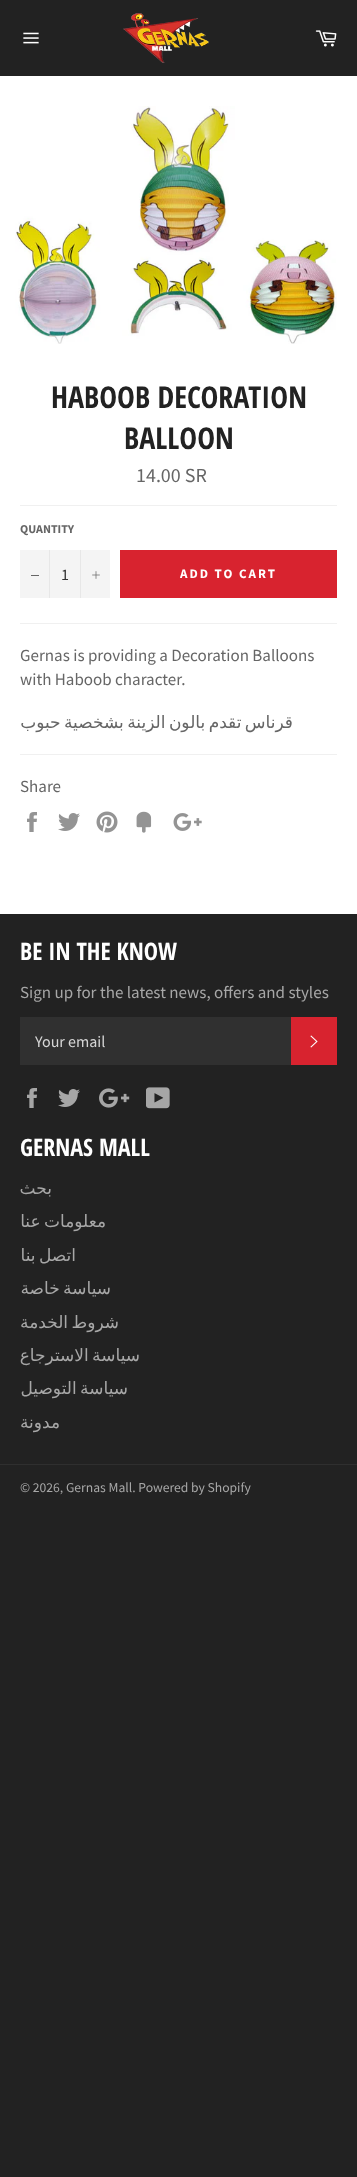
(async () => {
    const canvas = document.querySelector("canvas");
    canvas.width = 357;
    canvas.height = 2177;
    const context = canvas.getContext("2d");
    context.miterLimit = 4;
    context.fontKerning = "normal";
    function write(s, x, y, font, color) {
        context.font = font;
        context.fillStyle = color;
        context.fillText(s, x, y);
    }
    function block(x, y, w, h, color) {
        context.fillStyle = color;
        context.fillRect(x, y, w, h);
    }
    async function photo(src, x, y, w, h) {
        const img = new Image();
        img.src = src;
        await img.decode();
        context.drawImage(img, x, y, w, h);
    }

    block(0, 0, 357, 2177, "rgb(34, 34, 34)");
    block(0, 76, 357, 838, "rgb(255, 255, 255)");
    await photo("media/1.png", 23, 32, 16, 12);
    await photo("media/2.png", 123, 13, 86, 50);
    await photo("media/3.png", 315, 30, 22, 17);
    await photo("media/4.png", 15, 106, 322, 238);
    write("HABOOB DECORATION", 51, 408, "bold 30px Open Sans Condensed", "rgb(34, 34, 34)");
    write("BALLOON", 124, 449, "bold 30px Open Sans Condensed", "rgb(34, 34, 34)");
    write("14.00 SR", 136, 482, "20px Source Sans Pro", "rgb(102, 102, 102)");
    block(20, 505, 317, 1, "rgb(240, 240, 240)");
    write("QUANTITY", 20, 533, "bold 12px Source Sans Pro", "rgb(102, 102, 102)");
    block(20, 550, 90, 48, "rgb(244, 244, 244)");
    block(49, 550, 1, 48, "rgb(231, 231, 231)");
    block(31, 575, 8, 1, "rgb(102, 102, 102)");
    write("1", 61, 580, "16px Source Sans Pro", "rgb(51, 51, 51)");
    block(80, 550, 1, 48, "rgb(231, 231, 231)");
    await photo("media/5.png", 92, 571, 8, 8);
    block(120, 550, 217, 48, "rgb(216, 35, 47)");
    context.letterSpacing = "2px";
    write("ADD TO CART", 180, 578, "bold 13px Source Sans Pro", "rgb(255, 255, 255)");
    block(20, 623, 317, 1, "rgb(240, 240, 240)");
    context.letterSpacing = "0px";
    write("Gernas is providing a Decoration Balloons", 20, 661, "17px Source Sans Pro", "rgb(102, 102, 102)");
    write("with Haboob character.", 20, 685, "17px Source Sans Pro", "rgb(102, 102, 102)");
    context.wordSpacing = "-2px";
    context.direction = "rtl";
    write("قرناس تقدم بالون الزينة بشخصية حبوب", 293, 728, "17px DejaVu Sans", "rgb(102, 102, 102)");
    block(20, 754, 317, 1, "rgb(240, 240, 240)");
    context.wordSpacing = "0px";
    context.direction = "ltr";
    write("Share", 20, 792, "17px Source Sans Pro", "rgb(102, 102, 102)");
    await photo("media/6.png", 27, 812, 10, 20);
    await photo("media/7.png", 58, 813, 22, 18);
    await photo("media/8.png", 96, 811, 22, 22);
    await photo("media/9.png", 136, 811, 16, 22);
    await photo("media/10.png", 173, 813, 29, 18);
    write("BE IN THE KNOW", 20, 960, "bold 24px Open Sans Condensed", "rgb(255, 255, 255)");
    write("Sign up for the latest news, offers and styles", 20, 998, "17px Source Sans Pro", "rgb(167, 167, 167)");
    block(20, 1017, 271, 48, "rgb(48, 48, 48)");
    write("Your email", 35, 1047, "16px Source Sans Pro", "rgb(214, 214, 214)");
    block(291, 1017, 46, 48, "rgb(216, 35, 47)");
    await photo("media/11.png", 310, 1035, 8, 13);
    await photo("media/12.png", 27, 1088, 10, 20);
    await photo("media/13.png", 58, 1089, 22, 18);
    await photo("media/14.png", 99, 1088, 31, 20);
    await photo("media/15.png", 146, 1087, 24, 22);
    write("GERNAS MALL", 20, 1156, "bold 24px Open Sans Condensed", "rgb(255, 255, 255)");
    context.direction = "rtl";
    write("بحث", 52, 1194, "17px DejaVu Sans", "rgb(167, 167, 167)");
    context.wordSpacing = "-2px";
    write("معلومات عنا", 106, 1227, "17px DejaVu Sans", "rgb(167, 167, 167)");
    write("اتصل بنا", 76, 1261, "17px DejaVu Sans", "rgb(167, 167, 167)");
    write("سياسة خاصة", 111, 1294, "17px DejaVu Sans", "rgb(167, 167, 167)");
    write("شروط الخدمة", 119, 1328, "17px DejaVu Sans", "rgb(167, 167, 167)");
    write("سياسة الاسترجاع", 140, 1361, "17px DejaVu Sans", "rgb(167, 167, 167)");
    write("سياسة التوصيل", 128, 1394, "17px DejaVu Sans", "rgb(167, 167, 167)");
    context.wordSpacing = "0px";
    write("مدونة", 60, 1428, "17px DejaVu Sans", "rgb(167, 167, 167)");
    block(0, 1464, 357, 1, "rgb(47, 47, 47)");
    context.direction = "ltr";
    write("© 2026, Gernas Mall. Powered by Shopify", 20, 1492, "13.6px Source Sans Pro", "rgb(167, 167, 167)");
})();
